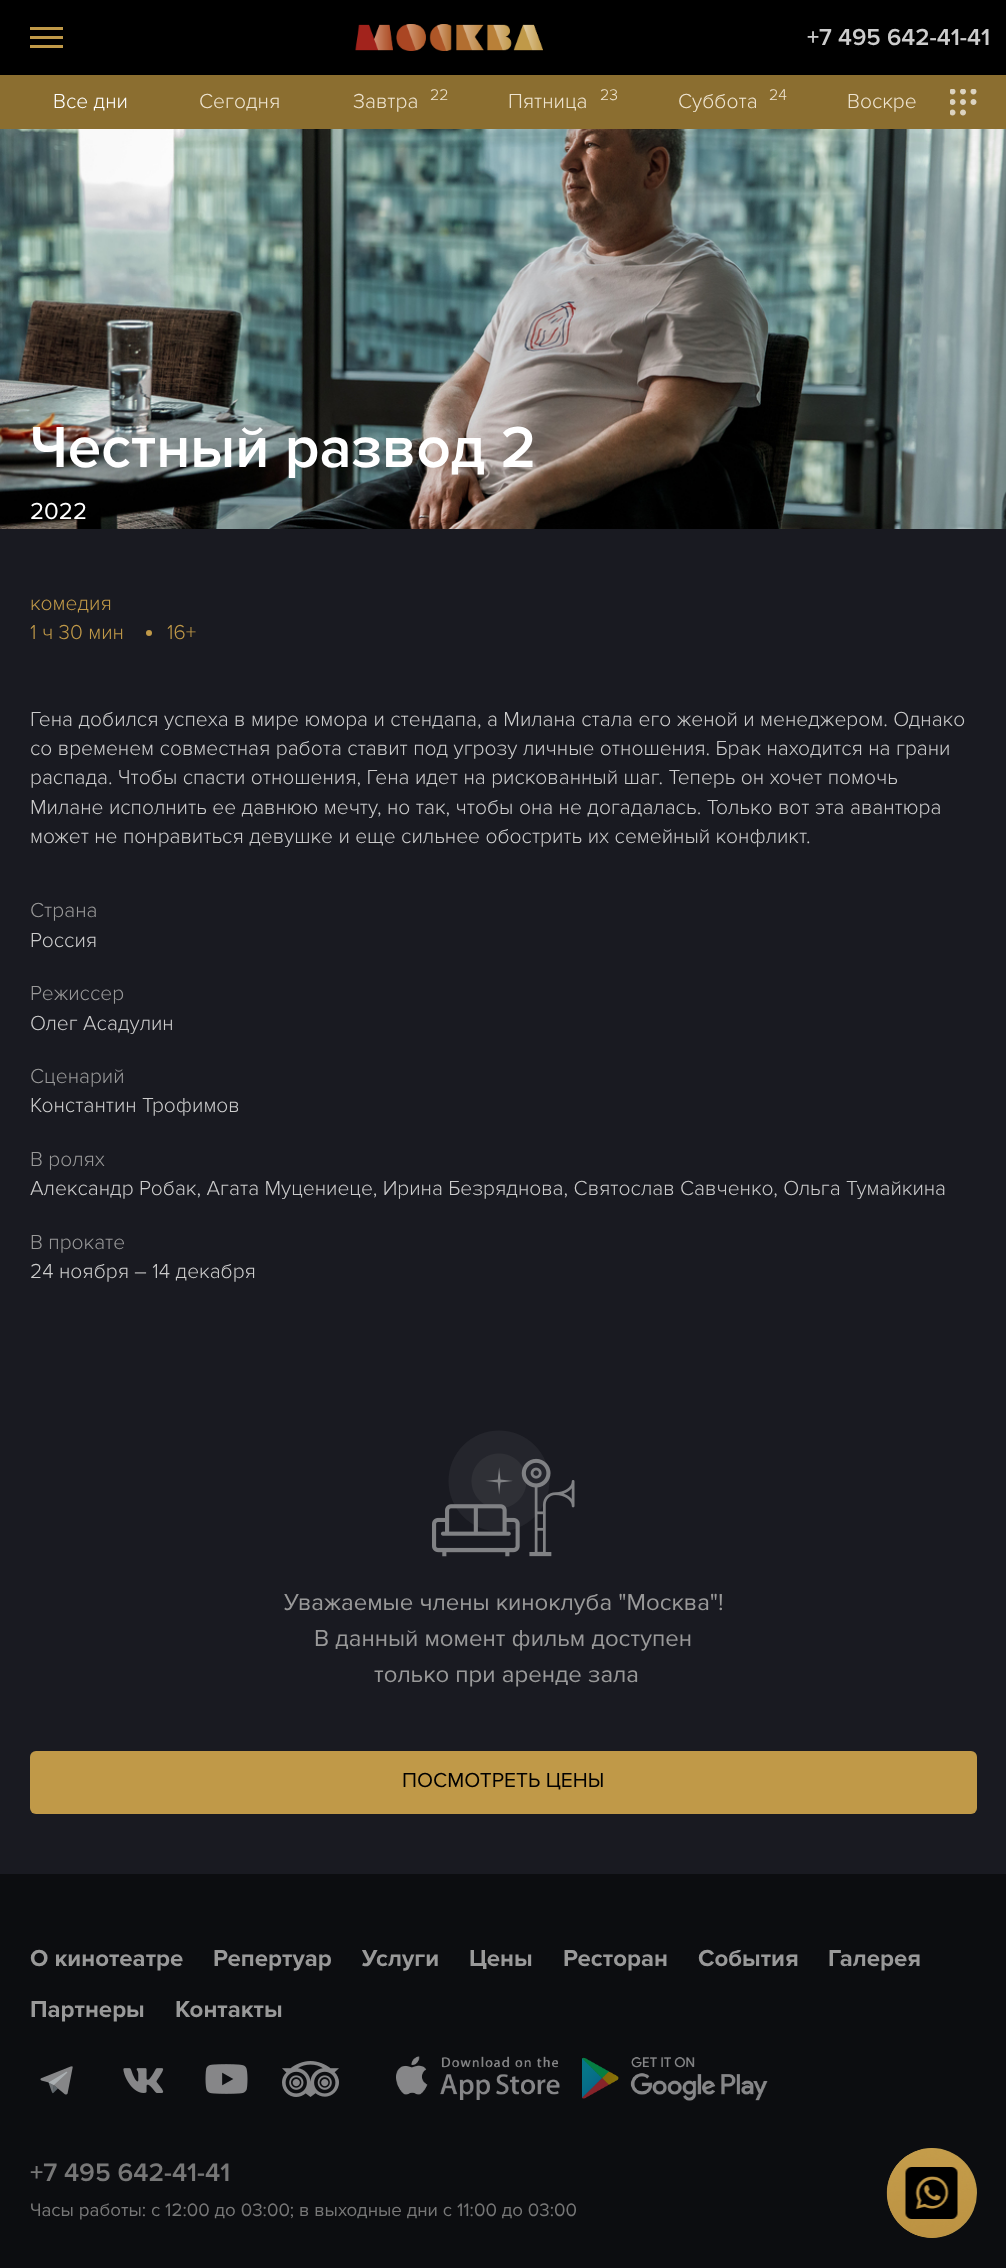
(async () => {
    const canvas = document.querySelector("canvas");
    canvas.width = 1006;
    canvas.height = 2268;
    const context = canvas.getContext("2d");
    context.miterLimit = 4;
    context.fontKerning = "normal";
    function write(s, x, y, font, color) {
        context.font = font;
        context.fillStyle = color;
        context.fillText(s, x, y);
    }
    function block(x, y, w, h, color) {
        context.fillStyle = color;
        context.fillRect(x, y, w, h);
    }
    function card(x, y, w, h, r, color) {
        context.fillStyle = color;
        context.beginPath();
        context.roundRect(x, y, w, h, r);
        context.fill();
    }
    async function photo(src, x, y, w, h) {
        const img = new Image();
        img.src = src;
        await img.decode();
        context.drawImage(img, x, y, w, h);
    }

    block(0, 0, 1006, 2268, "rgb(12, 13, 16)");
    block(0, 0, 1006, 75, "rgb(0, 0, 0)");
    block(30, 27, 33, 3, "rgb(192, 153, 72)");
    block(30, 36, 33, 3, "rgb(192, 153, 72)");
    block(30, 45, 33, 3, "rgb(192, 153, 72)");
    await photo("media/1.png", 355, 24, 188, 27);
    write("+7 495 642-41-41", 807, 45, "600 24px Proxima Nova", "rgb(204, 204, 204)");
    block(0, 75, 1006, 54, "rgb(139, 110, 48)");
    write("Все дни", 53, 108, "300 21px Proxima Nova", "rgb(255, 255, 255)");
    write("Сегодня", 199, 108, "300 21px Proxima Nova", "rgb(239, 229, 209)");
    write("Завтра", 353, 108, "300 21px Proxima Nova", "rgb(239, 229, 209)");
    write("22", 430, 100, "300 16px Proxima Nova", "rgb(239, 229, 209)");
    write("Пятница", 508, 108, "300 21px Proxima Nova", "rgb(239, 229, 209)");
    write("23", 600, 100, "300 16px Proxima Nova", "rgb(239, 229, 209)");
    write("Суббота", 678, 108, "300 21px Proxima Nova", "rgb(239, 229, 209)");
    write("24", 769, 100, "300 16px Proxima Nova", "rgb(239, 229, 209)");
    write("Воскре", 847, 108, "300 21px Proxima Nova", "rgb(239, 229, 209)");
    await photo("media/2.png", 950, 89, 27, 27);
    block(0, 529, 1006, 1345, "rgb(25, 26, 33)");
    await photo("media/3.png", 0, 129, 1006, 400);
    write("Честный развод 2", 30, 467, "600 60px Proxima Nova", "rgb(255, 255, 255)");
    write("2022", 30, 519, "24px Proxima Nova", "rgb(255, 255, 255)");
    write("комедия", 30, 610, "300 21px Proxima Nova", "rgb(192, 153, 72)");
    write("1 ч 30 мин", 30, 639, "300 21px Proxima Nova", "rgb(192, 153, 72)");
    context.beginPath();
    context.arc(149, 633, 3, 0, Math.PI * 2);
    context.fill();
    write("16+", 167, 639, "300 21px Proxima Nova", "rgb(192, 153, 72)");
    write("Гена добился успеха в мире юмора и стендапа, а Милана стала его женой и менеджером. Однако", 30, 726, "300 21px Proxima Nova", "rgb(204, 204, 204)");
    write("со временем совместная работа ставит под угрозу личные отношения. Брак находится на грани", 30, 755, "300 21px Proxima Nova", "rgb(204, 204, 204)");
    write("распада. Чтобы спасти отношения, Гена идет на рискованный шаг. Теперь он хочет помочь", 30, 784, "300 21px Proxima Nova", "rgb(204, 204, 204)");
    write("Милане исполнить ее давнюю мечту, но так, чтобы она не догадалась. Только вот эта авантюра", 30, 814, "300 21px Proxima Nova", "rgb(204, 204, 204)");
    write("может не понравиться девушке и еще сильнее обострить их семейный конфликт.", 30, 843, "300 21px Proxima Nova", "rgb(204, 204, 204)");
    write("Страна", 30, 917, "300 21px Proxima Nova", "rgb(153, 153, 153)");
    write("Россия", 30, 947, "300 21px Proxima Nova", "rgb(204, 204, 204)");
    write("Режиссер", 30, 1000, "300 21px Proxima Nova", "rgb(153, 153, 153)");
    write("Олег Асадулин", 30, 1030, "300 21px Proxima Nova", "rgb(204, 204, 204)");
    write("Сценарий", 30, 1083, "300 21px Proxima Nova", "rgb(153, 153, 153)");
    write("Константин Трофимов", 30, 1112, "300 21px Proxima Nova", "rgb(204, 204, 204)");
    write("В ролях", 30, 1166, "300 21px Proxima Nova", "rgb(153, 153, 153)");
    write("Александр Робак, Агата Муцениеце, Ирина Безряднова, Святослав Савченко, Ольга Тумайкина", 30, 1195, "300 21px Proxima Nova", "rgb(204, 204, 204)");
    write("В прокате", 30, 1249, "300 21px Proxima Nova", "rgb(153, 153, 153)");
    write("24 ноября – 14 декабря", 30, 1278, "300 21px Proxima Nova", "rgb(204, 204, 204)");
    await photo("media/4.png", 432, 1430, 143, 127);
    write("Уважаемые члены киноклуба \"Москва\"!", 284, 1610, "24px Proxima Nova", "rgb(153, 153, 153)");
    write("В данный момент фильм доступен", 314, 1646, "24px Proxima Nova", "rgb(153, 153, 153)");
    write("только при аренде зала", 374, 1682, "24px Proxima Nova", "rgb(153, 153, 153)");
    card(30, 1751, 947, 63, 6, "rgb(192, 153, 72)");
    write("ПОСМОТРЕТЬ ЦЕНЫ", 402, 1787, "21px Proxima Nova", "rgb(0, 0, 0)");
    write("О кинотеатре", 30, 1966, "bold 24px Proxima Nova", "rgb(153, 153, 153)");
    write("Репертуар", 213, 1966, "bold 24px Proxima Nova", "rgb(153, 153, 153)");
    write("Услуги", 362, 1966, "bold 24px Proxima Nova", "rgb(153, 153, 153)");
    write("Цены", 469, 1966, "bold 24px Proxima Nova", "rgb(153, 153, 153)");
    write("Ресторан", 563, 1966, "bold 24px Proxima Nova", "rgb(153, 153, 153)");
    write("События", 698, 1966, "bold 24px Proxima Nova", "rgb(153, 153, 153)");
    write("Галерея", 828, 1966, "bold 24px Proxima Nova", "rgb(153, 153, 153)");
    write("Партнеры", 30, 2017, "bold 24px Proxima Nova", "rgb(153, 153, 153)");
    write("Контакты", 175, 2017, "bold 24px Proxima Nova", "rgb(153, 153, 153)");
    await photo("media/5.png", 40, 2066, 33, 29);
    await photo("media/6.png", 123, 2068, 41, 25);
    await photo("media/7.png", 205, 2064, 43, 30);
    await photo("media/8.png", 282, 2061, 57, 36);
    await photo("media/9.png", 396, 2056, 164, 44);
    await photo("media/10.png", 582, 2057, 186, 44);
    write("+7 495 642-41-41", 30, 2181, "600 26.25px Proxima Nova", "rgb(119, 119, 119)");
    write("Часы работы: с 12:00 до 03:00; в выходные дни с 11:00 до 03:00", 30, 2216, "18.75px Proxima Nova", "rgb(119, 119, 119)");
    context.fillStyle = "rgb(186, 154, 76)";
    context.beginPath();
    context.arc(932, 2193, 45, 0, Math.PI * 2);
    context.fill();
    await photo("media/11.png", 886, 2148, 90, 90);
})();
